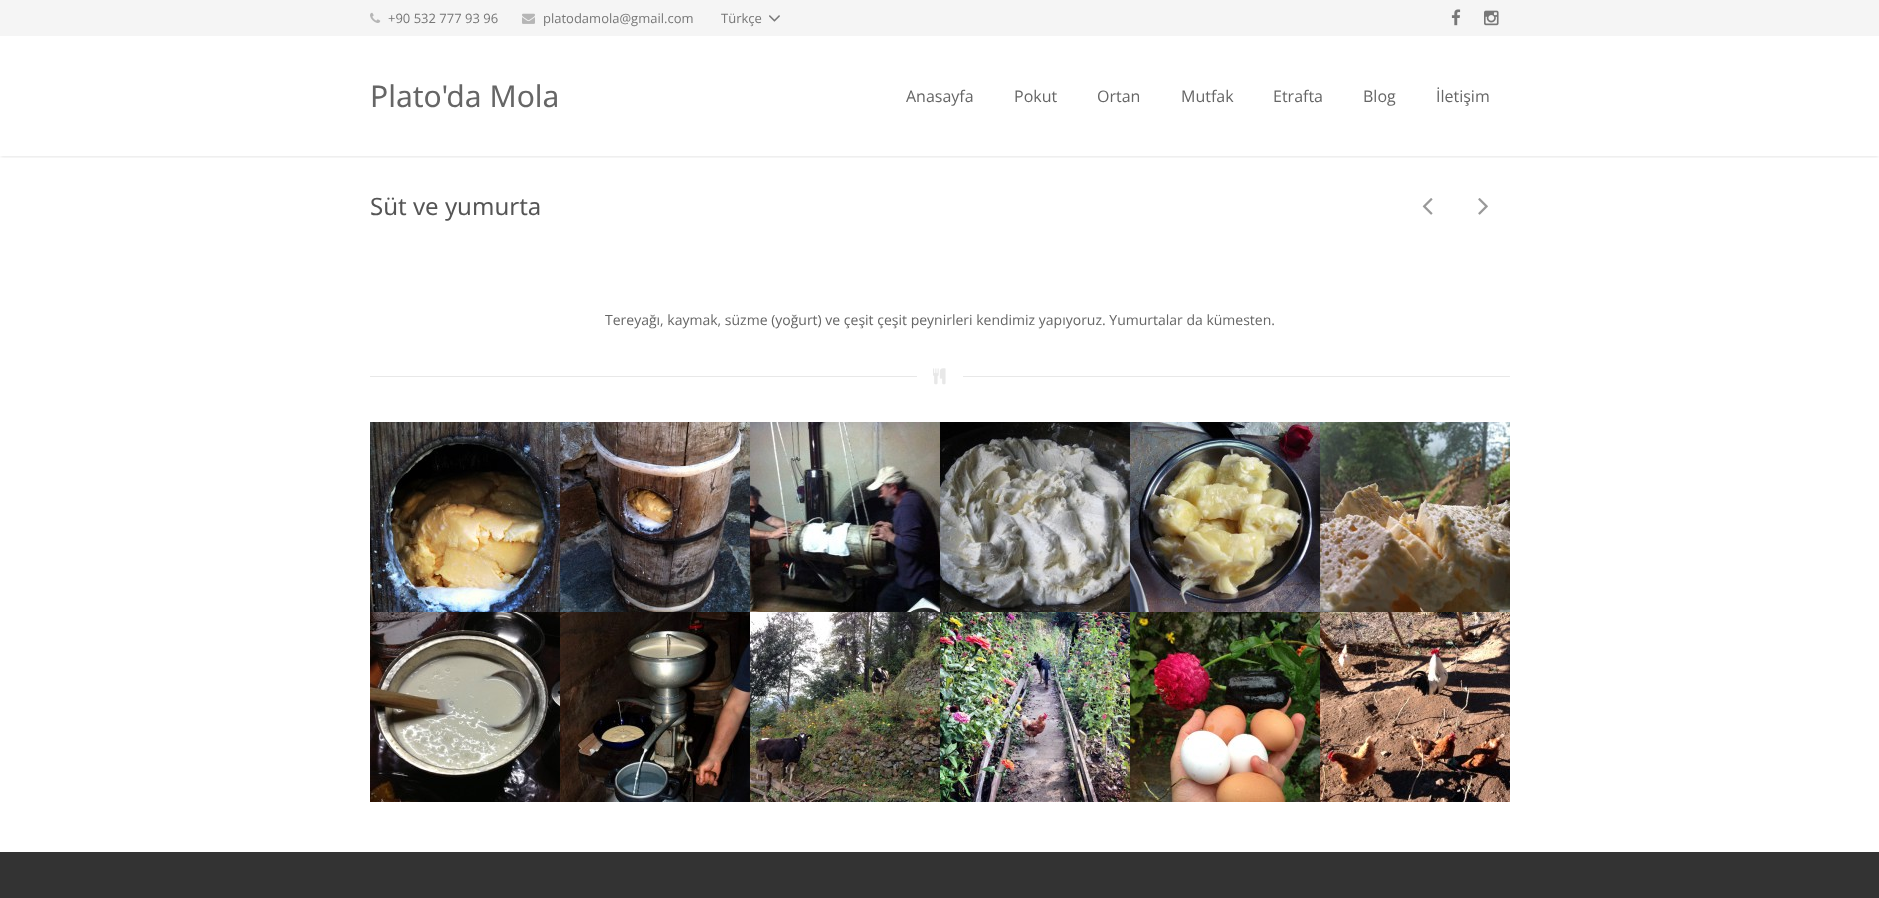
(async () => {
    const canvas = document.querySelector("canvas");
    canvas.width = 1879;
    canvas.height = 898;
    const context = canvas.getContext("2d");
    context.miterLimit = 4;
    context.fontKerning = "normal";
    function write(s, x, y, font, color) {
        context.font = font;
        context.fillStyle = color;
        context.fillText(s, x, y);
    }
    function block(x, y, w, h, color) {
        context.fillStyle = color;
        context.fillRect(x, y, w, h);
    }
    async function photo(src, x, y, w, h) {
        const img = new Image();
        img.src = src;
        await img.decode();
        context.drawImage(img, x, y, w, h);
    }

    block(0, 0, 1879, 898, "rgb(255, 255, 255)");
    block(0, 0, 1879, 36, "rgb(245, 245, 245)");
    await photo("media/1.png", 370, 12, 11, 11);
    write("+90 532 777 93 96", 388, 23, "13px Open Sans", "rgb(119, 119, 119)");
    await photo("media/2.png", 522, 13, 13, 11);
    write("platodamola@gmail.com", 543, 23, "13px Open Sans", "rgb(119, 119, 119)");
    write("Türkçe", 721, 23, "13px Open Sans", "rgb(119, 119, 119)");
    await photo("media/3.png", 769, 15, 11, 7);
    await photo("media/4.png", 1451, 9, 10, 17);
    await photo("media/5.png", 1484, 10, 15, 16);
    context.save();
    context.beginPath();
    context.rect(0, 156, 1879, 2);
    context.clip();
    context.fillStyle = "rgba(0, 0, 0, 0.1)";
    context.filter = "blur(1.5px)";
    context.beginPath();
    context.rect(1, 39, 1877, 118);
    context.fill();
    context.filter = "none";
    context.restore();
    write("Plato'da Mola", 370, 107, "30px Noto Sans", "rgb(102, 102, 102)");
    write("Anasayfa", 906, 102, "16px Open Sans", "rgb(102, 102, 102)");
    write("Pokut", 1014, 102, "16px Open Sans", "rgb(102, 102, 102)");
    write("Ortan", 1097, 102, "16px Open Sans", "rgb(102, 102, 102)");
    write("Mutfak", 1181, 102, "16px Open Sans", "rgb(102, 102, 102)");
    write("Etrafta", 1273, 102, "16px Open Sans", "rgb(102, 102, 102)");
    write("Blog", 1363, 102, "16px Open Sans", "rgb(102, 102, 102)");
    write("İletişim", 1436, 102, "16px Open Sans", "rgb(102, 102, 102)");
    write("Süt ve yumurta", 370, 215, "24px Noto Sans", "rgb(85, 85, 85)");
    await photo("media/6.png", 1422, 198, 11, 17);
    await photo("media/7.png", 1478, 198, 10, 17);
    write("Tereyağı, kaymak, süzme (yoğurt) ve çeşit çeşit peynirleri kendimiz yapıyoruz. Yumurtalar da kümesten.", 605, 325, "14px Open Sans", "rgb(102, 102, 102)");
    block(370, 376, 547, 1, "rgb(232, 232, 232)");
    await photo("media/8.png", 933, 368, 13, 17);
    block(963, 376, 547, 1, "rgb(232, 232, 232)");
    await photo("media/9.png", 370, 422, 190, 190);
    await photo("media/10.png", 560, 422, 190, 190);
    await photo("media/11.png", 750, 422, 190, 190);
    await photo("media/12.png", 940, 422, 190, 190);
    await photo("media/13.png", 1130, 422, 190, 190);
    await photo("media/14.png", 1320, 422, 190, 190);
    await photo("media/15.png", 370, 612, 190, 190);
    await photo("media/16.png", 560, 612, 190, 190);
    await photo("media/17.png", 750, 612, 190, 190);
    await photo("media/18.png", 940, 612, 190, 190);
    await photo("media/19.png", 1130, 612, 190, 190);
    await photo("media/20.png", 1320, 612, 190, 190);
    block(0, 852, 1879, 46, "rgb(51, 51, 51)");
})();
